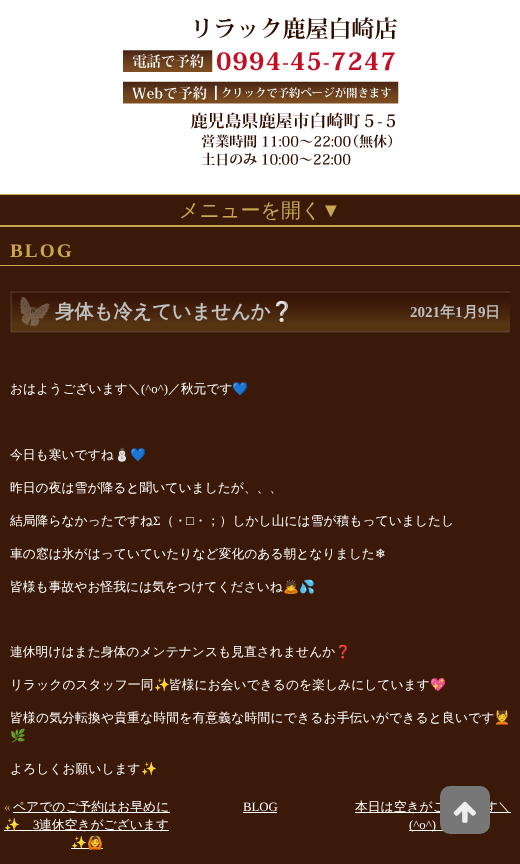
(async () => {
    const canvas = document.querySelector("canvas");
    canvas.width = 520;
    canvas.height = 864;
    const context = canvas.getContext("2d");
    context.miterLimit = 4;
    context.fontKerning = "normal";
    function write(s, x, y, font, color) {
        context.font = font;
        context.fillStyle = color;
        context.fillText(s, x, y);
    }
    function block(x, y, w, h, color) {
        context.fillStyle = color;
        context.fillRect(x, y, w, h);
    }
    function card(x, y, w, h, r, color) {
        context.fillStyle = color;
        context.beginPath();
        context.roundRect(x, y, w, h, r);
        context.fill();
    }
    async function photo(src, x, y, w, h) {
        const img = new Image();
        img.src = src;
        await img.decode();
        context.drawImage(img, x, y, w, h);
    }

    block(0, 0, 520, 864, "rgb(255, 255, 255)");
    await photo("media/1.png", 194, 17, 203, 23);
    await photo("media/2.png", 123, 50, 272, 22);
    await photo("media/3.png", 123, 81, 276, 23);
    await photo("media/4.png", 191, 112, 204, 54);
    block(0, 195, 520, 30, "rgb(59, 25, 9)");
    block(0, 194, 520, 1, "rgb(200, 167, 80)");
    block(0, 225, 520, 2, "rgb(200, 167, 80)");
    write("メニューを開く", 179, 217, "500 20px WenQuanYi Zen Hei", "rgb(200, 167, 80)");
    write("▼", 321, 217, "20px Liberation Serif", "rgb(200, 167, 80)");
    block(0, 227, 520, 637, "rgb(59, 25, 9)");
    block(0, 265, 520, 1, "rgb(200, 167, 80)");
    context.letterSpacing = "2px";
    write("BLOG", 10, 257, "bold 19.25px Liberation Serif", "rgb(200, 167, 80)");
    await photo("media/5.png", 10, 291, 500, 42);
    context.letterSpacing = "0px";
    write("身体も冷えていませんか", 55, 318, "bold 19.25px WenQuanYi Zen Hei", "rgb(192, 192, 192)");
    write("❔", 270, 318, "bold 19.25px Noto Color Emoji", "rgb(192, 192, 192)");
    write("2021", 410, 317, "bold 15px Liberation Serif", "rgb(192, 192, 192)");
    write("年", 440, 317, "bold 15px WenQuanYi Zen Hei", "rgb(192, 192, 192)");
    write("1", 455, 317, "bold 15px Liberation Serif", "rgb(192, 192, 192)");
    write("月", 463, 317, "bold 15px WenQuanYi Zen Hei", "rgb(192, 192, 192)");
    write("9", 478, 317, "bold 15px Liberation Serif", "rgb(192, 192, 192)");
    write("日", 485, 317, "bold 15px WenQuanYi Zen Hei", "rgb(192, 192, 192)");
    write("おはようございます＼", 10, 393, "500 12.8px WenQuanYi Zen Hei", "rgb(255, 255, 255)");
    write("(^o^)", 141, 393, "12.8px Liberation Serif", "rgb(255, 255, 255)");
    write("／秋元です", 168, 393, "500 12.8px WenQuanYi Zen Hei", "rgb(255, 255, 255)");
    write("💙", 232, 393, "12.8px Noto Color Emoji", "rgb(255, 255, 255)");
    write("今日も寒いですね", 10, 459, "500 12.8px WenQuanYi Zen Hei", "rgb(255, 255, 255)");
    write("⛄️💙", 114, 459, "12.8px Noto Color Emoji", "rgb(255, 255, 255)");
    write("昨日の夜は雪が降ると聞いていましたが、、、", 10, 492, "500 12.8px WenQuanYi Zen Hei", "rgb(255, 255, 255)");
    write("結局降らなかったですね", 10, 525, "500 12.8px WenQuanYi Zen Hei", "rgb(255, 255, 255)");
    write("Σ", 153, 525, "12.8px Liberation Serif", "rgb(255, 255, 255)");
    write("（・", 161, 525, "500 12.8px WenQuanYi Zen Hei", "rgb(255, 255, 255)");
    write("□", 186, 525, "12.8px Liberation Serif", "rgb(255, 255, 255)");
    write("・；）しかし山には雪が積もっていましたし", 194, 525, "500 12.8px WenQuanYi Zen Hei", "rgb(255, 255, 255)");
    write("車の窓は氷がはっていていたりなど変化のある朝となりました", 10, 558, "500 12.8px WenQuanYi Zen Hei", "rgb(255, 255, 255)");
    write("❄︎", 375, 558, "12.8px DejaVu Sans", "rgb(255, 255, 255)");
    write("皆様も事故やお怪我には気をつけてくださいね", 10, 591, "500 12.8px WenQuanYi Zen Hei", "rgb(255, 255, 255)");
    write("🙇💦", 283, 591, "12.8px Noto Color Emoji", "rgb(255, 255, 255)");
    write("連休明けはまた身体のメンテナンスも見直されませんか", 10, 656, "500 12.8px WenQuanYi Zen Hei", "rgb(255, 255, 255)");
    write("❓", 335, 656, "12.8px Noto Color Emoji", "rgb(255, 255, 255)");
    write("リラックのスタッフ一同", 10, 689, "500 12.8px WenQuanYi Zen Hei", "rgb(255, 255, 255)");
    write("✨", 154, 689, "12.8px Noto Color Emoji", "rgb(255, 255, 255)");
    write("皆様にお会いできるのを楽しみにしています", 169, 689, "500 12.8px WenQuanYi Zen Hei", "rgb(255, 255, 255)");
    write("💖", 430, 689, "12.8px Noto Color Emoji", "rgb(255, 255, 255)");
    context.letterSpacing = "0.15px";
    write("皆様の気分転換や貴重な時間を有意義な時間にできるお手伝いができると良いです", 10, 722, "500 12.8px WenQuanYi Zen Hei", "rgb(255, 255, 255)");
    write("💆", 494, 722, "12.8px Noto Color Emoji", "rgb(255, 255, 255)");
    context.letterSpacing = "0px";
    write("🌿", 10, 740, "12.8px Noto Color Emoji", "rgb(255, 255, 255)");
    write("よろしくお願いします", 10, 773, "500 12.8px WenQuanYi Zen Hei", "rgb(255, 255, 255)");
    write("✨", 141, 773, "12.8px Noto Color Emoji", "rgb(255, 255, 255)");
    write("«", 4, 811, "12.8px Liberation Serif", "rgb(200, 167, 80)");
    block(13, 812, 157, 1, "rgb(255, 255, 255)");
    write("ペアでのご予約はお早めに", 13, 811, "500 12.8px WenQuanYi Zen Hei", "rgb(255, 255, 255)");
    block(4, 830, 165, 1, "rgb(255, 255, 255)");
    write("✨", 4, 829, "12.8px Noto Color Emoji", "rgb(255, 255, 255)");
    write("3", 33, 829, "12.8px Liberation Serif", "rgb(255, 255, 255)");
    write("連休空きがございます", 39, 829, "500 12.8px WenQuanYi Zen Hei", "rgb(255, 255, 255)");
    block(71, 848, 32, 1, "rgb(255, 255, 255)");
    write("✨🙆", 71, 847, "12.8px Noto Color Emoji", "rgb(255, 255, 255)");
    write("BLOG", 243, 811, "12.8px Liberation Serif", "rgb(255, 255, 255)");
    block(243, 812, 34, 1, "rgb(255, 255, 255)");
    block(355, 812, 156, 1, "rgb(255, 255, 255)");
    write("本日は空きがご", 355, 811, "500 12.8px WenQuanYi Zen Hei", "rgb(255, 255, 255)");
    write("す＼", 485, 811, "500 12.8px WenQuanYi Zen Hei", "rgb(255, 255, 255)");
    block(409, 830, 39, 1, "rgb(255, 255, 255)");
    write("(^o^)", 409, 829, "12.8px Liberation Serif", "rgb(255, 255, 255)");
    card(440, 786, 50, 48, 10, "rgb(119, 119, 119)");
    await photo("media/6.png", 453, 801, 23, 22);
})();
